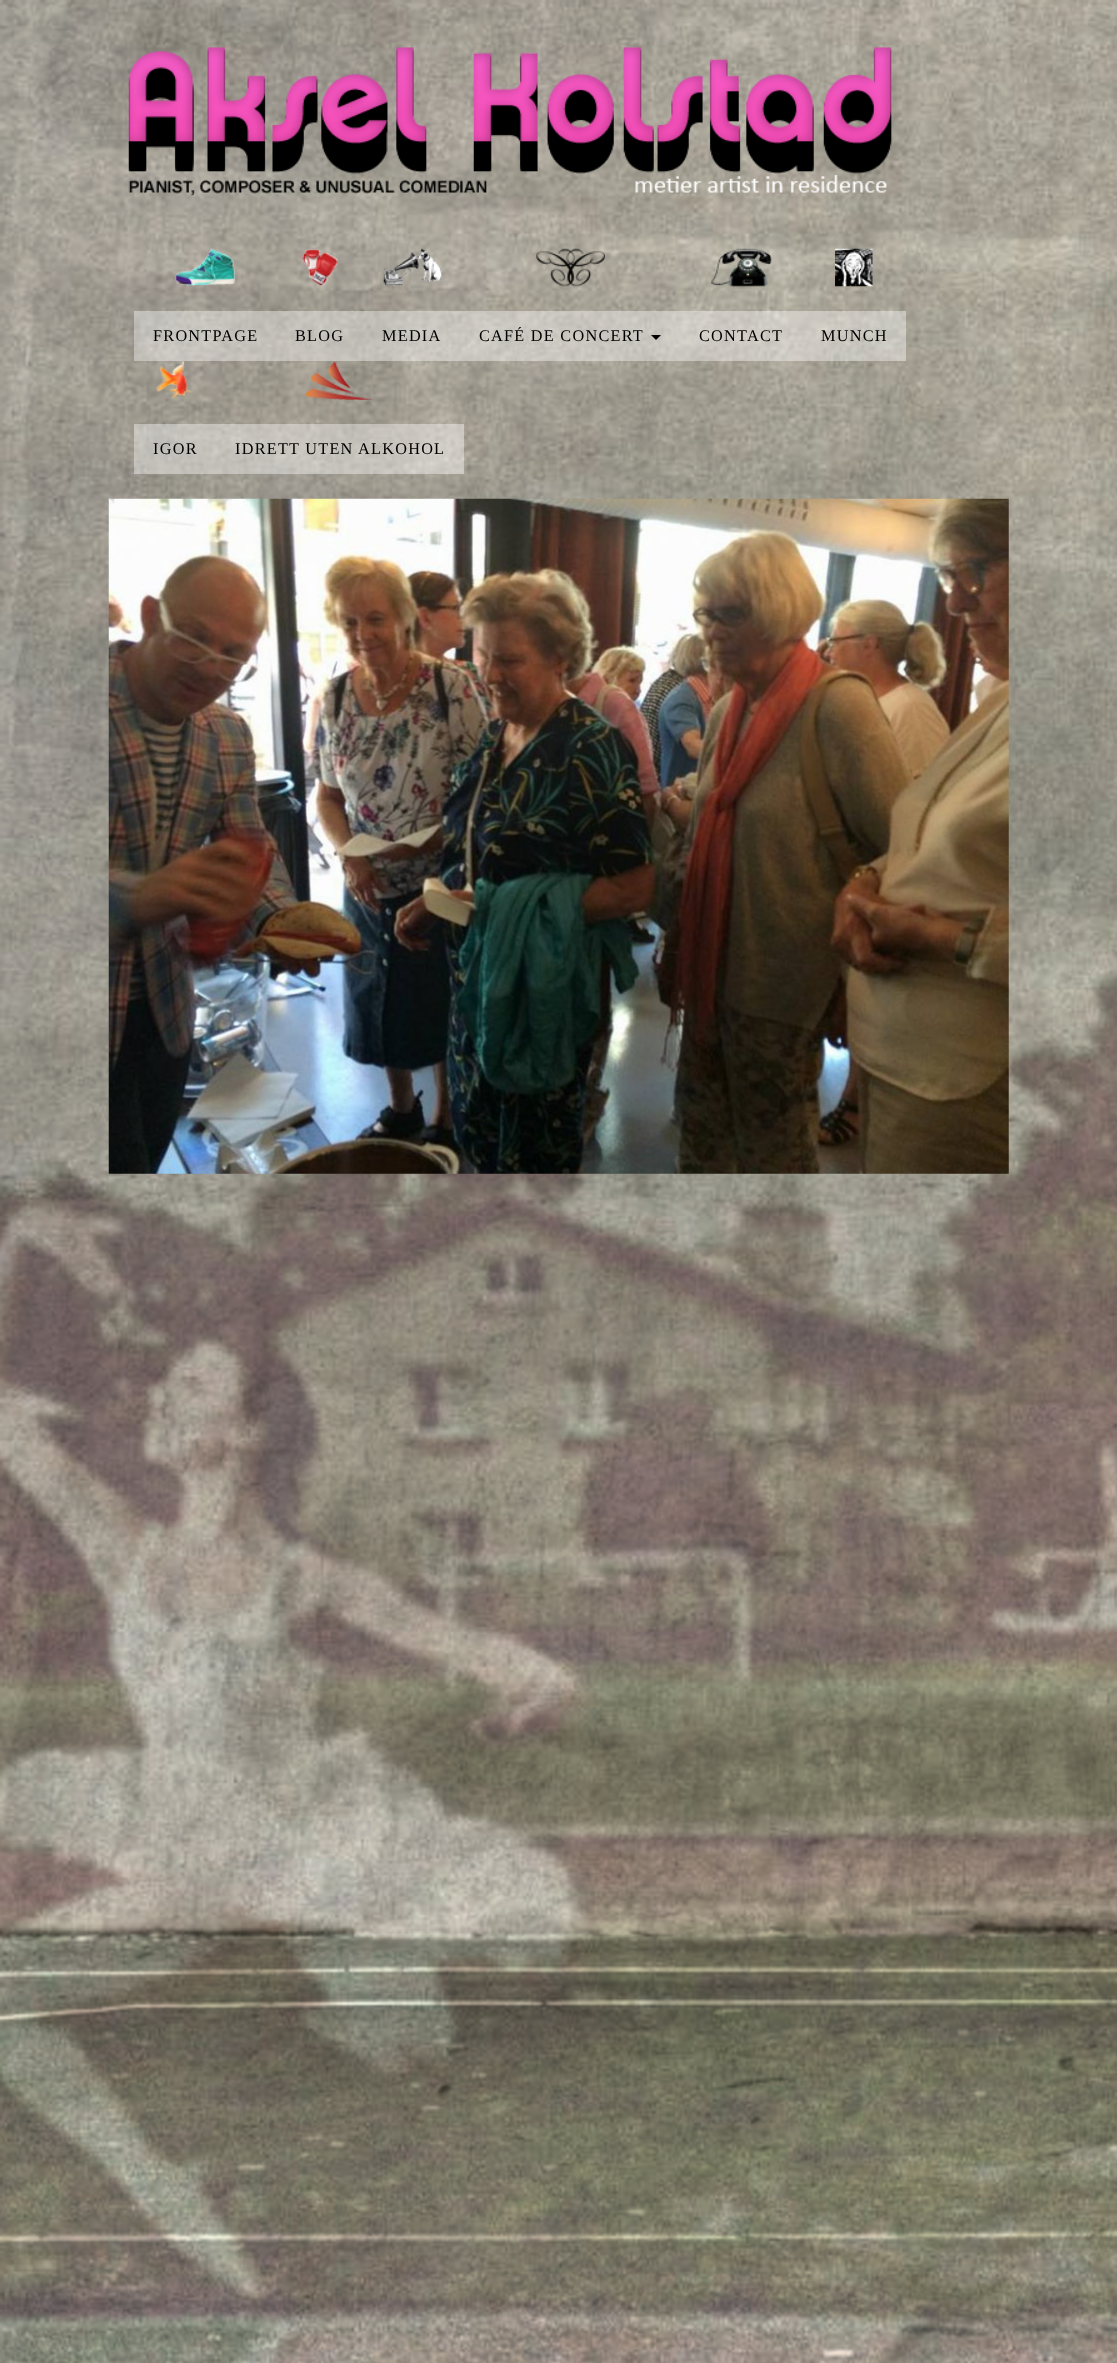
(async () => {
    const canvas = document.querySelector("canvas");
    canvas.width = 1117;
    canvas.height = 2363;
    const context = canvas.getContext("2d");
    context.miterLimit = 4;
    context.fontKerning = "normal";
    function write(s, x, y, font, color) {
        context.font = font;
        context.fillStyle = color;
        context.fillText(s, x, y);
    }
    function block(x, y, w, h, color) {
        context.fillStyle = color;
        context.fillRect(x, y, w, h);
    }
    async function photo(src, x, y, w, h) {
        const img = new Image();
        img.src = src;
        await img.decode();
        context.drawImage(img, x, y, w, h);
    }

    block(0, 0, 1117, 2363, "rgb(255, 255, 255)");
    await photo("media/1.png", 0, 0, 1117, 2363);
    await photo("media/2.png", 128, 47, 764, 149);
    await photo("media/3.png", 175, 248, 60, 39);
    block(134, 311, 142, 50, "rgba(255, 255, 255, 0.4)");
    context.letterSpacing = "1.25px";
    write("FRONTPAGE", 153, 341, "16.25px Liberation Serif", "rgb(0, 0, 0)");
    await photo("media/4.png", 302, 248, 36, 38);
    block(276, 311, 88, 50, "rgba(255, 255, 255, 0.4)");
    write("BLOG", 295, 341, "16.25px Liberation Serif", "rgb(0, 0, 0)");
    await photo("media/5.png", 382, 248, 61, 39);
    block(364, 311, 96, 50, "rgba(255, 255, 255, 0.4)");
    write("MEDIA", 382, 341, "16.25px Liberation Serif", "rgb(0, 0, 0)");
    await photo("media/6.png", 536, 248, 69, 39);
    block(460, 311, 220, 50, "rgba(255, 255, 255, 0.4)");
    write("CAFÉ DE CONCERT", 479, 341, "16.25px Liberation Serif", "rgb(0, 0, 0)");
    context.beginPath();
    context.moveTo(651, 335);
    context.lineTo(661, 335);
    context.lineTo(656, 340);
    context.closePath();
    context.fill();
    await photo("media/7.png", 711, 248, 61, 39);
    block(680, 311, 123, 50, "rgba(255, 255, 255, 0.4)");
    write("CONTACT", 699, 341, "16.25px Liberation Serif", "rgb(0, 0, 0)");
    await photo("media/8.png", 835, 248, 38, 39);
    block(803, 311, 103, 50, "rgba(255, 255, 255, 0.4)");
    write("MUNCH", 821, 341, "16.25px Liberation Serif", "rgb(0, 0, 0)");
    await photo("media/9.png", 156, 361, 37, 38);
    block(134, 424, 82, 50, "rgba(255, 255, 255, 0.4)");
    write("IGOR", 153, 454, "16.25px Liberation Serif", "rgb(0, 0, 0)");
    await photo("media/10.png", 305, 361, 68, 39);
    block(216, 424, 248, 50, "rgba(255, 255, 255, 0.4)");
    write("IDRETT UTEN ALKOHOL", 235, 454, "16.25px Liberation Serif", "rgb(0, 0, 0)");
    await photo("media/11.png", 108, 498, 901, 676);
})();
